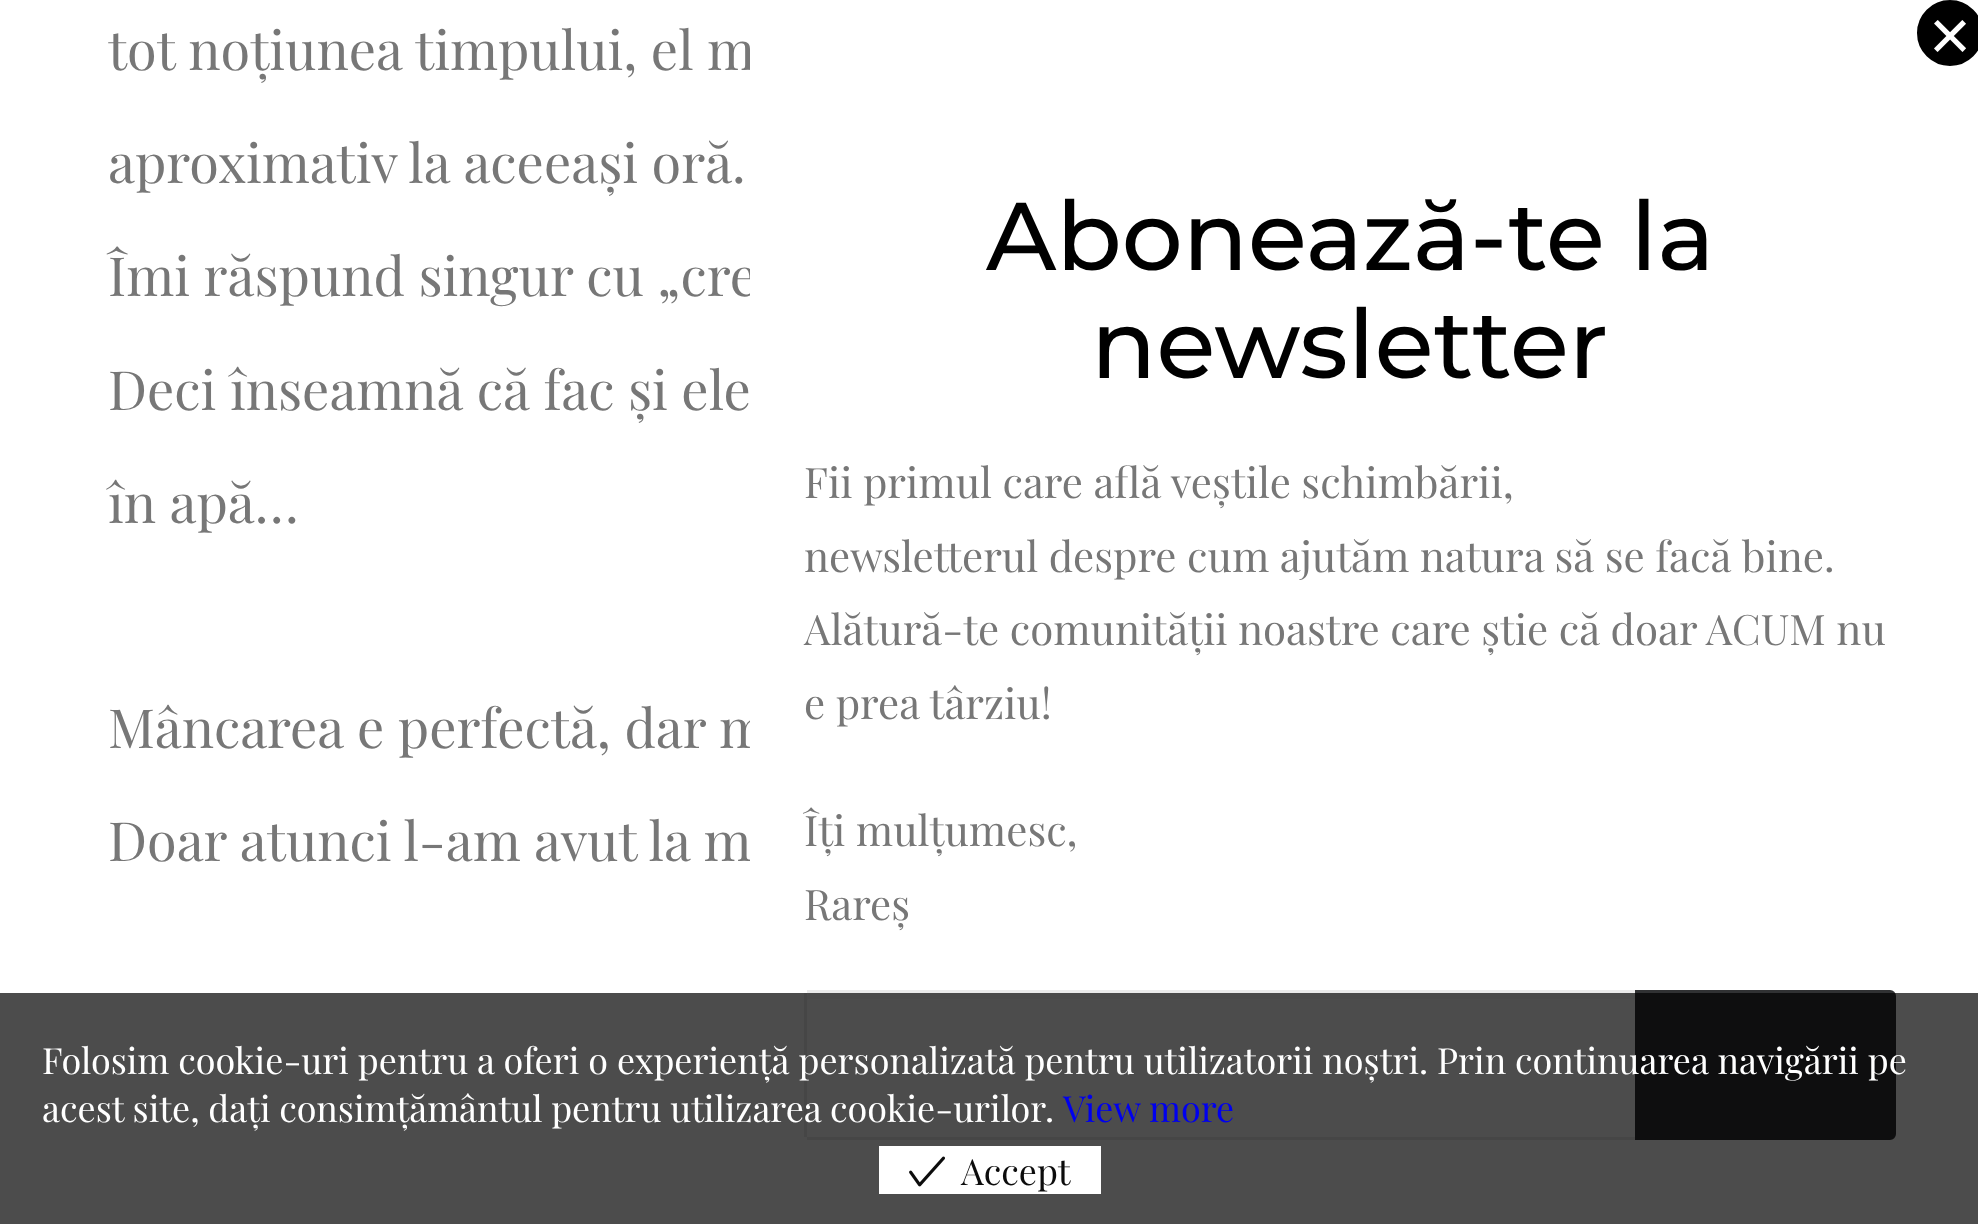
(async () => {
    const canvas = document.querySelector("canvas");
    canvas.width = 1978;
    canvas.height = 1224;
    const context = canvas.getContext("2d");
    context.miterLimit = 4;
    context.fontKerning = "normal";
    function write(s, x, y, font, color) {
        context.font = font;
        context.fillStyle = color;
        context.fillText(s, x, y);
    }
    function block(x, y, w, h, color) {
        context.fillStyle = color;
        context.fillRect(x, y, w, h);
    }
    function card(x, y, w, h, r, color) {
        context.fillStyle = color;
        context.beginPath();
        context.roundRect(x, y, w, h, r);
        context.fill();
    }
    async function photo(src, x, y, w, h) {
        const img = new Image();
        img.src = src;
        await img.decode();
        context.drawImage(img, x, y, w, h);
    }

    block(0, 0, 1978, 1224, "rgb(255, 255, 255)");
    write("tot noțiunea timpului, el m", 108, 70, "54px Playfair Display", "rgb(119, 119, 119)");
    write("aproximativ la aceeași oră.", 108, 183, "54px Playfair Display", "rgb(119, 119, 119)");
    write("Îmi răspund singur cu „cre", 108, 296, "54px Playfair Display", "rgb(119, 119, 119)");
    write("Deci înseamnă că fac și ele", 108, 410, "54px Playfair Display", "rgb(119, 119, 119)");
    write("în apă…", 108, 523, "54px Playfair Display", "rgb(119, 119, 119)");
    write("Mâncarea e perfectă, dar m", 108, 748, "54px Playfair Display", "rgb(119, 119, 119)");
    write("Doar atunci l-am avut la m", 108, 861, "54px Playfair Display", "rgb(119, 119, 119)");
    card(750, 33, 1200, 1161, 9, "rgb(255, 255, 255)");
    context.fillStyle = "rgb(0, 0, 0)";
    context.beginPath();
    context.arc(1950, 33, 36, 0, Math.PI * 2);
    context.fill();
    context.strokeStyle = "rgb(255, 255, 255)";
    context.lineWidth = 6;
    context.stroke();
    write("×", 1929, 60, "72px Liberation Sans", "rgb(255, 255, 255)");
    write("Abonează-te la", 986, 270, "500 96px Montserrat", "rgb(0, 0, 0)");
    write("newsletter", 1091, 378, "500 96px Montserrat", "rgb(0, 0, 0)");
    write("Fii primul care află veștile schimbării,", 804, 498, "42px Playfair Display", "rgb(119, 119, 119)");
    write("newsletterul despre cum ajutăm natura să se facă bine.", 804, 572, "42px Playfair Display", "rgb(119, 119, 119)");
    write("Alătură-te comunității noastre care știe că doar ACUM nu", 804, 645, "42px Playfair Display", "rgb(119, 119, 119)");
    write("e prea târziu!", 804, 719, "42px Playfair Display", "rgb(119, 119, 119)");
    write("Îți mulțumesc,", 804, 846, "42px Playfair Display", "rgb(119, 119, 119)");
    write("Rareș", 804, 920, "42px Playfair Display", "rgb(119, 119, 119)");
    context.fillStyle = "rgb(249, 249, 249)";
    context.beginPath();
    context.moveTo(810, 999);
    context.lineTo(1635, 999);
    context.lineTo(1635, 993);
    context.lineTo(809, 993);
    context.bezierCurveTo(806, 995, 807, 1000, 807, 1002);
    context.bezierCurveTo(807, 1000, 808, 999, 810, 999);
    context.closePath();
    context.fill();
    block(807, 990, 828, 3, "rgb(234, 234, 234)");
    block(807, 1137, 828, 3, "rgb(234, 234, 234)");
    block(804, 993, 3, 144, "rgb(234, 234, 234)");
    context.fillStyle = "rgb(48, 49, 51)";
    context.beginPath();
    context.roundRect(1636.5, 991.5, 258, 147, [0, 4.5, 4.5, 0]);
    context.fill();
    context.strokeStyle = "rgb(48, 49, 51)";
    context.lineWidth = 3;
    context.stroke();
    block(0, 993, 1978, 231, "rgba(0, 0, 0, 0.7)");
    write("Folosim cookie-uri pentru a oferi o experiență personalizată pentru utilizatorii noștri. Prin continuarea navigării pe", 42, 1074, "36px Playfair Display", "rgb(255, 255, 255)");
    context.wordSpacing = "-0.25px";
    write("acest site, dați consimțământul pentru utilizarea cookie-urilor.", 42, 1122, "36px Playfair Display", "rgb(255, 255, 255)");
    context.wordSpacing = "0px";
    write("View more", 1063, 1122, "36px Playfair Display", "rgb(0, 0, 238)");
    block(879, 1146, 222, 48, "rgb(255, 255, 255)");
    await photo("media/1.png", 909, 1156, 36, 31);
    write("Accept", 961, 1185, "36px Playfair Display", "rgb(12, 12, 12)");
})();
